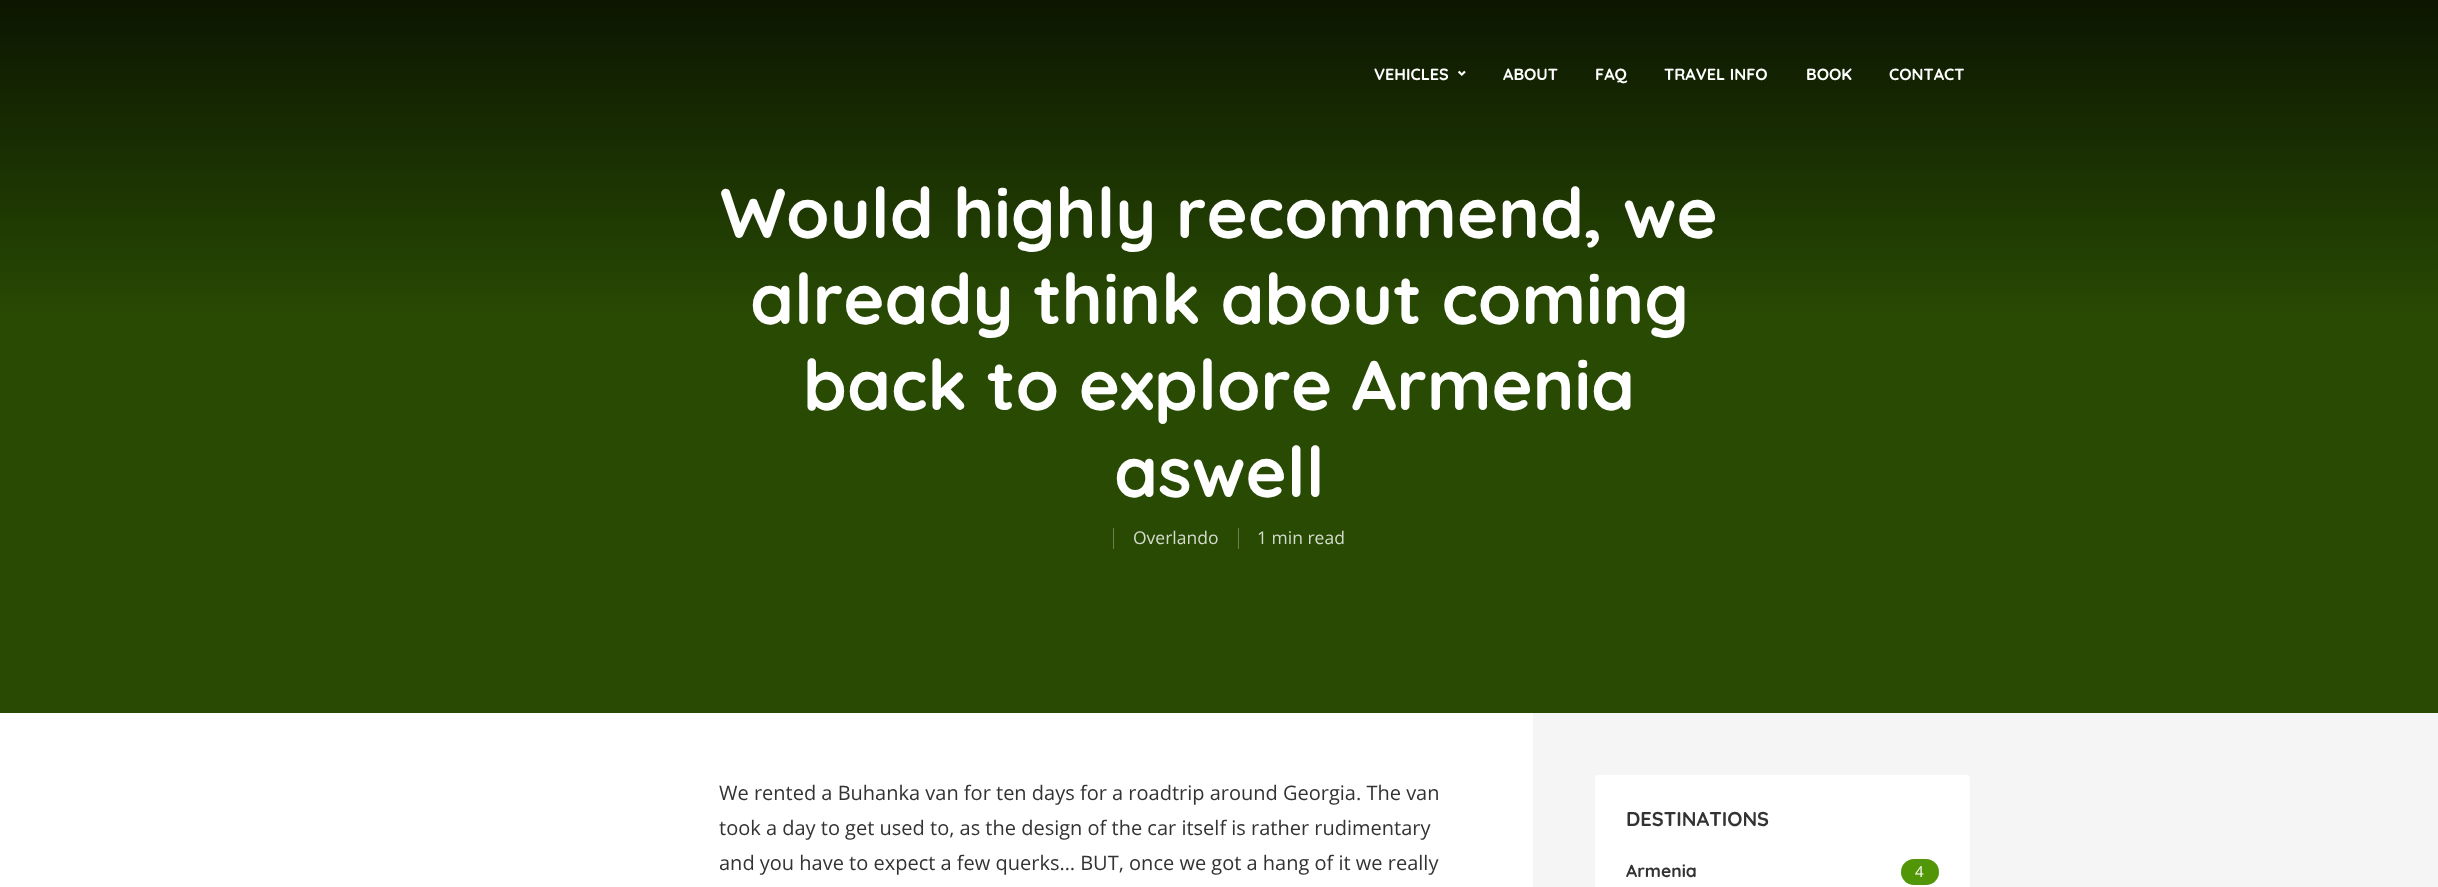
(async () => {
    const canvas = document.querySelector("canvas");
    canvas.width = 2438;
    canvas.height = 887;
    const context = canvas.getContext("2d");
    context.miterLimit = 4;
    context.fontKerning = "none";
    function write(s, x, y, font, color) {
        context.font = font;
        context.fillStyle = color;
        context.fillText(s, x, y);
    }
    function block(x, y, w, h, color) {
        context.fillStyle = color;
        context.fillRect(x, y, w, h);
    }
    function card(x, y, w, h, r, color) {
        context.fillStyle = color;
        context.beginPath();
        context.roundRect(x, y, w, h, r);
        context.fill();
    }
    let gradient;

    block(0, 0, 2438, 887, "rgb(255, 255, 255)");
    gradient = context.createLinearGradient(1219, 313, 1219, 0);
    gradient.addColorStop(0, "rgb(40, 73, 3)");
    gradient.addColorStop(1, "rgb(12, 22, 1)");
    context.fillStyle = gradient;
    context.fillRect(0, 0, 2438, 313);
    write("VEHICLES", 1374, 80, "bold 16.25px Quicksand", "rgb(255, 255, 255)");
    write("𐥻", 1458, 80, "bold 16.25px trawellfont", "rgb(255, 255, 255)");
    write("ABOUT", 1503, 80, "bold 16.25px Quicksand", "rgb(255, 255, 255)");
    write("FAQ", 1595, 80, "bold 16.25px Quicksand", "rgb(255, 255, 255)");
    write("TRAVEL INFO", 1664, 80, "bold 16.25px Quicksand", "rgb(255, 255, 255)");
    write("BOOK", 1806, 80, "bold 16.25px Quicksand", "rgb(255, 255, 255)");
    write("CONTACT", 1889, 80, "bold 16.25px Quicksand", "rgb(255, 255, 255)");
    write("Would highly recommend, we", 720, 238, "bold 70px Quicksand", "rgb(255, 255, 255)");
    block(0, 313, 2438, 400, "rgb(40, 74, 3)");
    write("already think about coming", 750, 324, "bold 70px Quicksand", "rgb(255, 255, 255)");
    write("back to explore Armenia", 803, 410, "bold 70px Quicksand", "rgb(255, 255, 255)");
    write("aswell", 1114, 497, "bold 70px Quicksand", "rgb(255, 255, 255)");
    block(1113, 528, 1, 21, "rgb(105, 128, 79)");
    write("Overlando", 1133, 544, "17.5px Open Sans", "rgb(212, 219, 205)");
    block(1238, 528, 1, 21, "rgb(105, 128, 79)");
    write("1 min read", 1257, 544, "17.5px Open Sans", "rgb(212, 219, 205)");
    write("We rented a Buhanka van for ten days for a roadtrip around Georgia. The van", 719, 800, "20px Open Sans", "rgb(51, 51, 51)");
    write("took a day to get used to, as the design of the car itself is rather rudimentary", 719, 835, "20px Open Sans", "rgb(51, 51, 51)");
    write("and you have to expect a few querks… BUT, once we got a hang of it we really", 719, 870, "20px Open Sans", "rgb(51, 51, 51)");
    block(1533, 713, 905, 174, "rgb(245, 245, 245)");
    card(1595, 775, 375, 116, 4, "rgb(255, 255, 255)");
    write("DESTINATIONS", 1626, 826, "bold 20px Quicksand", "rgb(51, 51, 51)");
    write("Armenia", 1626, 877, "bold 17.5px Quicksand", "rgb(51, 51, 51)");
    card(1901, 859, 38, 26, 13, "rgb(80, 150, 6)");
    write("4", 1915, 877, "15px Open Sans", "rgb(255, 255, 255)");
})();
